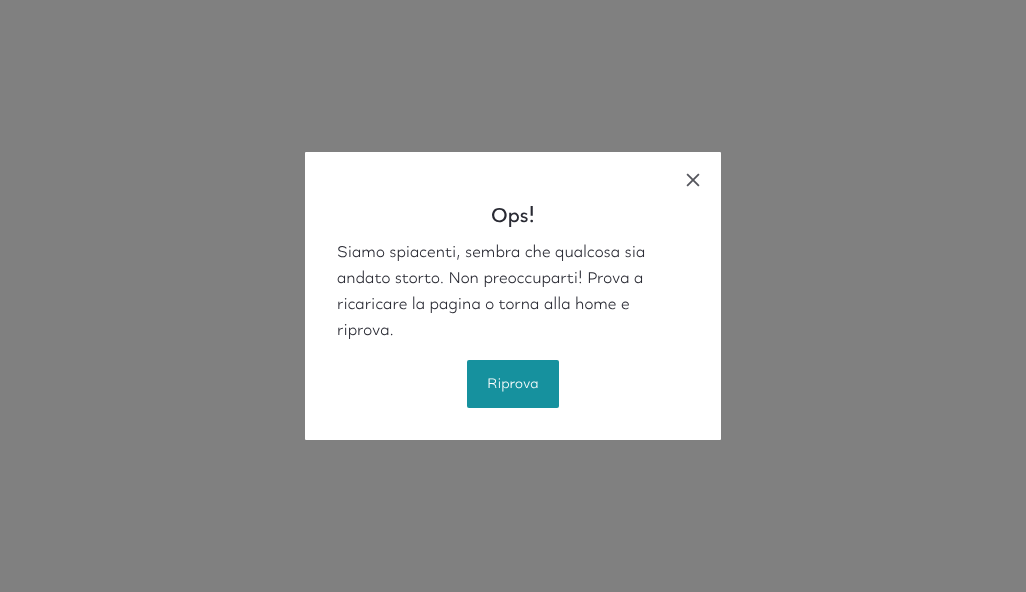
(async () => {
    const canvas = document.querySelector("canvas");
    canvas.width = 1026;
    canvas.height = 592;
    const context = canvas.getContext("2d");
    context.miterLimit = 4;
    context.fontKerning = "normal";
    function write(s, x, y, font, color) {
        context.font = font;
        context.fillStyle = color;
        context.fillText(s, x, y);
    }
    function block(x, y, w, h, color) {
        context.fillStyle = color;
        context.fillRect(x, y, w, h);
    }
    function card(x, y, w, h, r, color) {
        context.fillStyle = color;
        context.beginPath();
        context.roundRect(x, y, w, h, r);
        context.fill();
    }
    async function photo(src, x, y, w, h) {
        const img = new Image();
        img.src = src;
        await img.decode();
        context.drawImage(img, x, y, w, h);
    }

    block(0, 0, 1026, 592, "rgb(128, 128, 128)");
    card(305, 152, 416, 288, 1, "rgb(255, 255, 255)");
    await photo("media/1.png", 686, 173, 14, 14);
    write("Ops!", 491, 222, "600 23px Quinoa", "rgb(41, 42, 51)");
    write("Siamo spiacenti, sembra che qualcosa sia", 337, 257, "500 18px Quinoa", "rgb(41, 42, 51)");
    write("andato storto. Non preoccuparti! Prova a", 337, 283, "500 18px Quinoa", "rgb(41, 42, 51)");
    write("ricaricare la pagina o torna alla home e", 337, 309, "500 18px Quinoa", "rgb(41, 42, 51)");
    write("riprova.", 337, 335, "500 18px Quinoa", "rgb(41, 42, 51)");
    card(467, 360, 92, 48, 2, "rgb(22, 145, 158)");
    write("Riprova", 487, 388, "500 16px Quinoa", "rgb(255, 255, 255)");
})();
